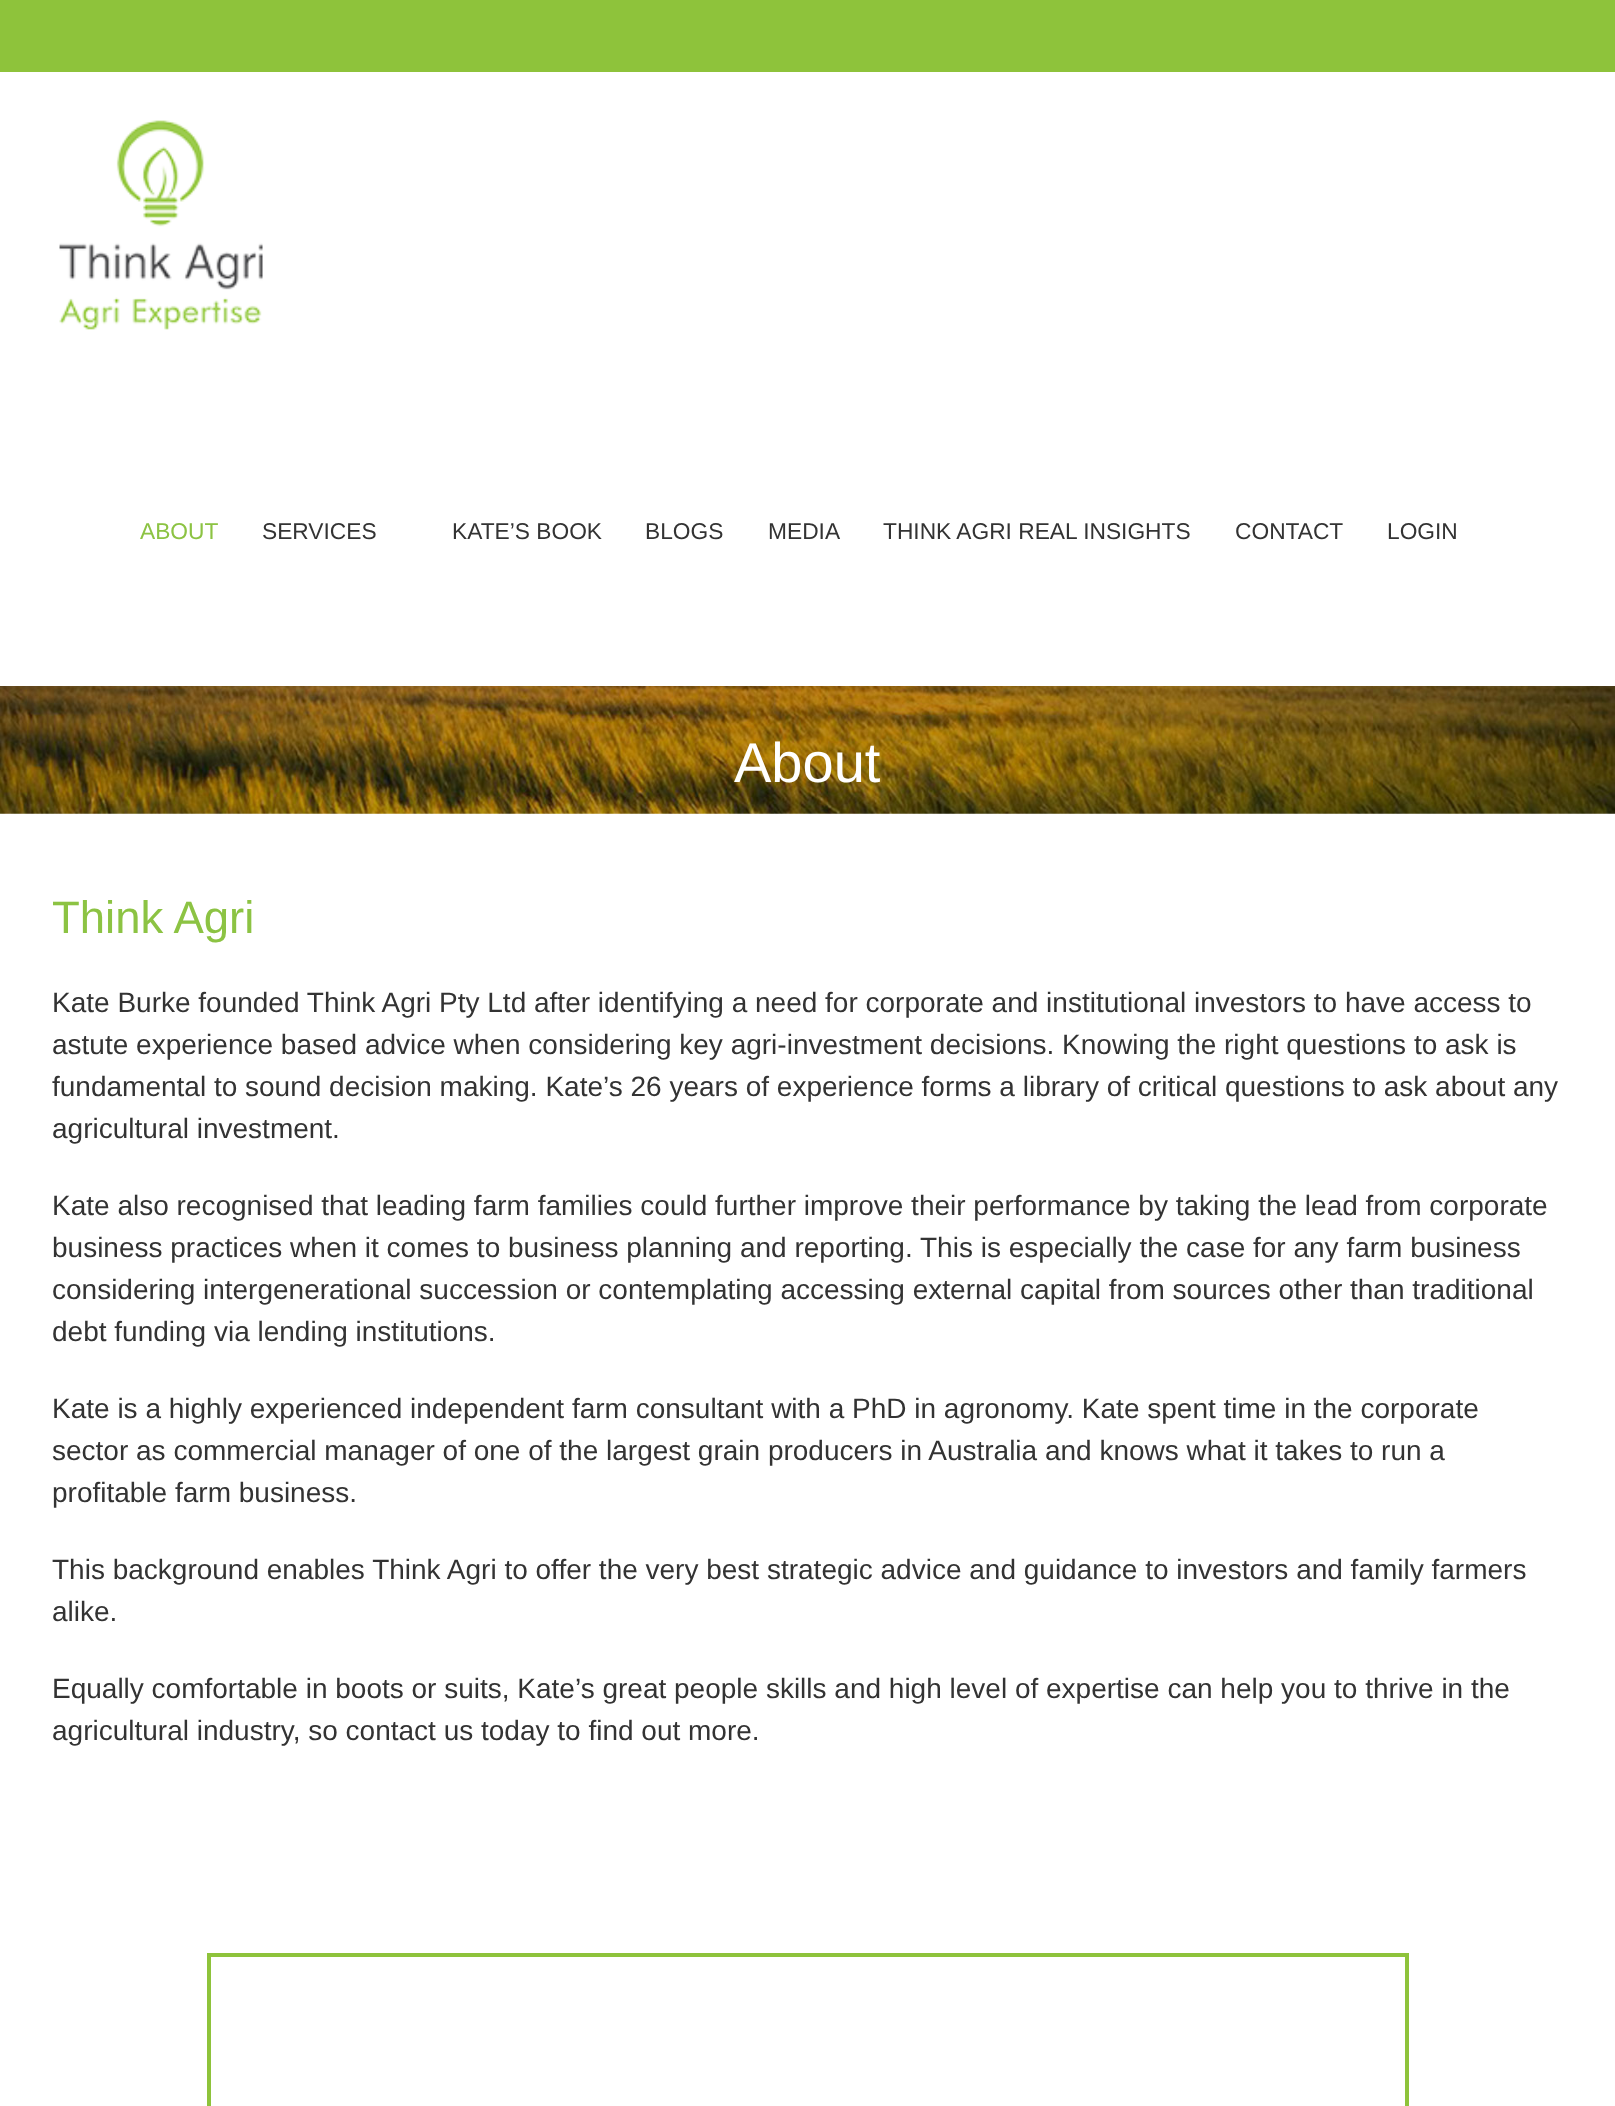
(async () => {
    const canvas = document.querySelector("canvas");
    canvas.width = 1615;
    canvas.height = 2106;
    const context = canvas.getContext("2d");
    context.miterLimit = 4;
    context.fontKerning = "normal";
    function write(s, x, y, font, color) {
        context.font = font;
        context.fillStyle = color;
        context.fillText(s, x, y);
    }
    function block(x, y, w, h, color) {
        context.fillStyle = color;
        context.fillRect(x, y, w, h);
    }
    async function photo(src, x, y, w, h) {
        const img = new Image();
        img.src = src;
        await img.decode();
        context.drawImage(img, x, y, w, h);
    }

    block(0, 0, 1615, 2106, "rgb(255, 255, 255)");
    block(0, 0, 1615, 72, "rgb(142, 195, 59)");
    await photo("media/1.png", 59, 120, 204, 210);
    write("ABOUT", 140, 539, "22.75px Liberation Sans", "rgb(140, 195, 67)");
    write("SERVICES", 262, 539, "22.75px Liberation Sans", "rgb(51, 51, 51)");
    write("KATE’S BOOK", 452, 539, "22.75px Liberation Sans", "rgb(51, 51, 51)");
    write("BLOGS", 645, 539, "22.75px Liberation Sans", "rgb(51, 51, 51)");
    write("MEDIA", 768, 539, "22.75px Liberation Sans", "rgb(51, 51, 51)");
    write("THINK AGRI REAL INSIGHTS", 883, 539, "22.75px Liberation Sans", "rgb(51, 51, 51)");
    write("CONTACT", 1235, 539, "22.75px Liberation Sans", "rgb(51, 51, 51)");
    write("LOGIN", 1387, 539, "22.75px Liberation Sans", "rgb(51, 51, 51)");
    await photo("media/2.png", 0, 686, 1615, 128);
    write("About", 734, 782, "56px Liberation Sans", "rgb(255, 255, 255)");
    write("Think Agri", 52, 933, "45.5px Liberation Sans", "rgb(140, 195, 67)");
    write("Kate Burke founded Think Agri Pty Ltd after identifying a need for corporate and institutional investors to have access to", 52, 1012, "28px Liberation Sans", "rgb(51, 51, 51)");
    write("astute experience based advice when considering key agri-investment decisions. Knowing the right questions to ask is", 52, 1054, "28px Liberation Sans", "rgb(51, 51, 51)");
    write("fundamental to sound decision making. Kate’s 26 years of experience forms a library of critical questions to ask about any", 52, 1096, "28px Liberation Sans", "rgb(51, 51, 51)");
    write("agricultural investment.", 52, 1138, "28px Liberation Sans", "rgb(51, 51, 51)");
    write("Kate also recognised that leading farm families could further improve their performance by taking the lead from corporate", 52, 1215, "28px Liberation Sans", "rgb(51, 51, 51)");
    write("business practices when it comes to business planning and reporting. This is especially the case for any farm business", 52, 1257, "28px Liberation Sans", "rgb(51, 51, 51)");
    write("considering intergenerational succession or contemplating accessing external capital from sources other than traditional", 52, 1299, "28px Liberation Sans", "rgb(51, 51, 51)");
    write("debt funding via lending institutions.", 52, 1341, "28px Liberation Sans", "rgb(51, 51, 51)");
    write("Kate is a highly experienced independent farm consultant with a PhD in agronomy. Kate spent time in the corporate", 52, 1418, "28px Liberation Sans", "rgb(51, 51, 51)");
    write("sector as commercial manager of one of the largest grain producers in Australia and knows what it takes to run a", 52, 1460, "28px Liberation Sans", "rgb(51, 51, 51)");
    write("profitable farm business.", 52, 1502, "28px Liberation Sans", "rgb(51, 51, 51)");
    write("This background enables Think Agri to offer the very best strategic advice and guidance to investors and family farmers", 52, 1579, "28px Liberation Sans", "rgb(51, 51, 51)");
    write("alike.", 52, 1621, "28px Liberation Sans", "rgb(51, 51, 51)");
    write("Equally comfortable in boots or suits, Kate’s great people skills and high level of expertise can help you to thrive in the", 52, 1698, "28px Liberation Sans", "rgb(51, 51, 51)");
    write("agricultural industry, so contact us today to find out more.", 52, 1740, "28px Liberation Sans", "rgb(51, 51, 51)");
    context.strokeStyle = "rgb(142, 195, 59)";
    context.lineWidth = 4;
    context.strokeRect(209, 1955, 1198, 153);
})();
